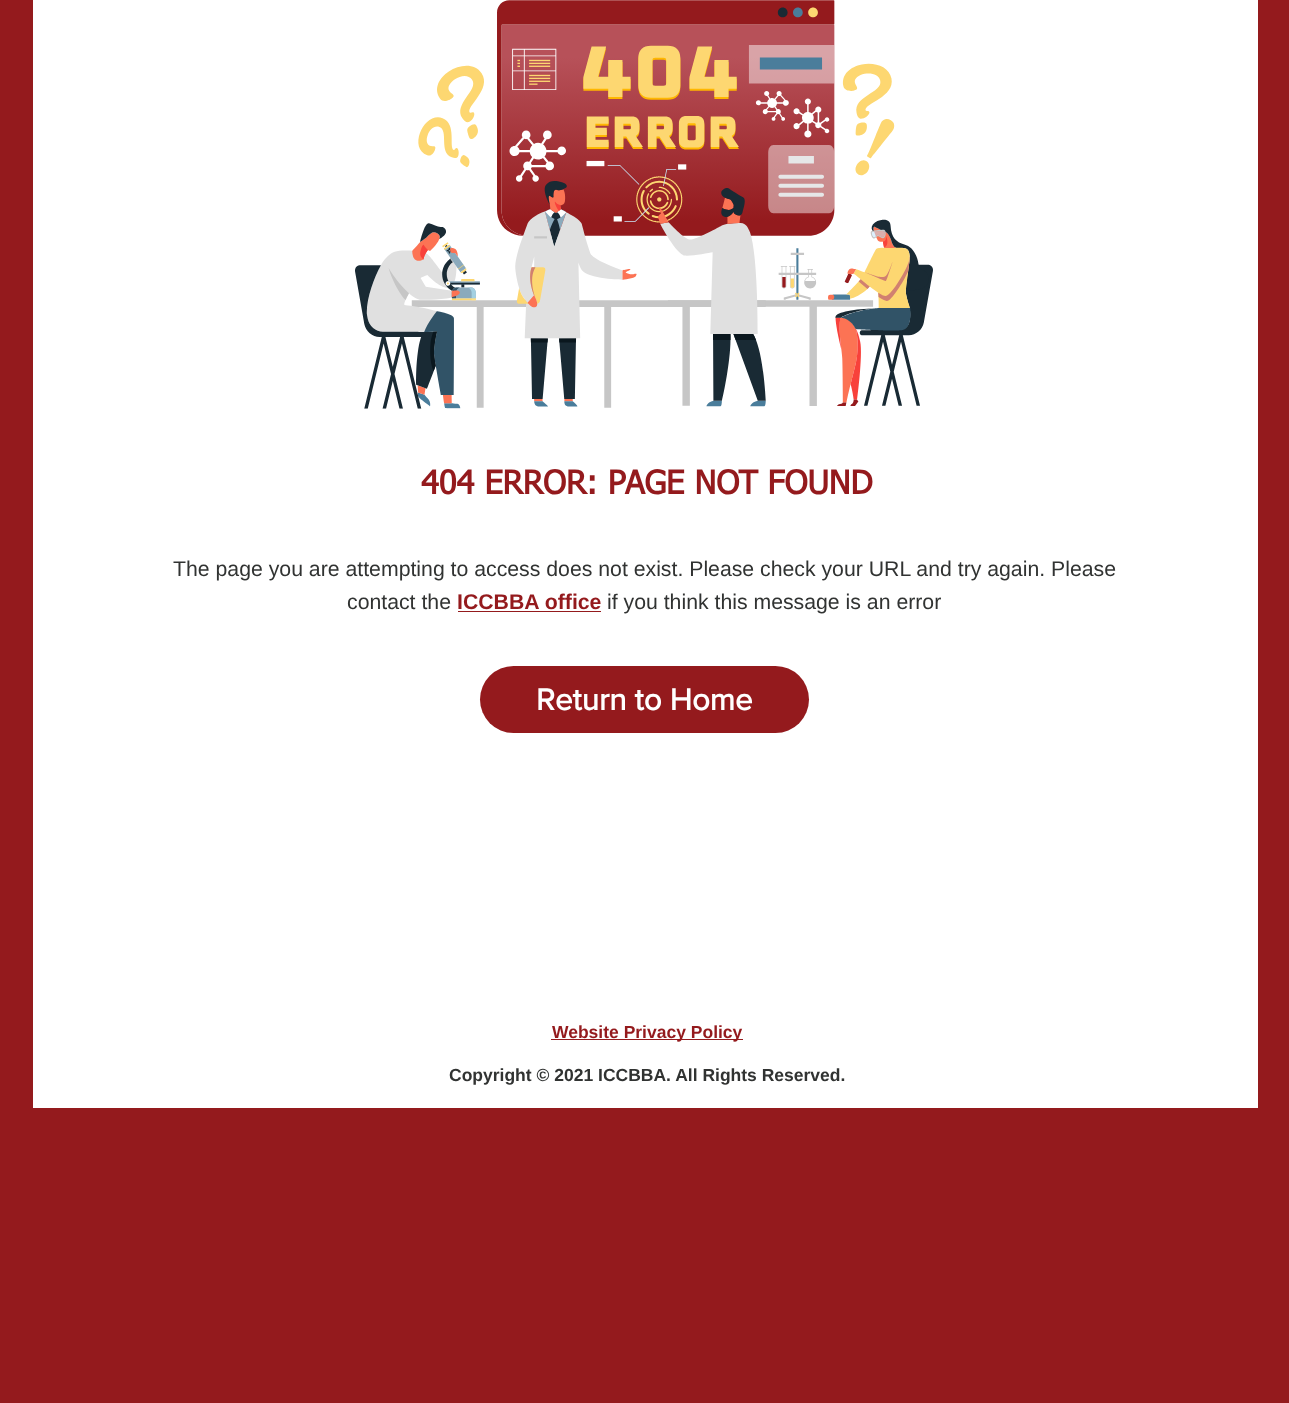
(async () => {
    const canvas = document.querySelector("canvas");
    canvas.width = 1289;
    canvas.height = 1403;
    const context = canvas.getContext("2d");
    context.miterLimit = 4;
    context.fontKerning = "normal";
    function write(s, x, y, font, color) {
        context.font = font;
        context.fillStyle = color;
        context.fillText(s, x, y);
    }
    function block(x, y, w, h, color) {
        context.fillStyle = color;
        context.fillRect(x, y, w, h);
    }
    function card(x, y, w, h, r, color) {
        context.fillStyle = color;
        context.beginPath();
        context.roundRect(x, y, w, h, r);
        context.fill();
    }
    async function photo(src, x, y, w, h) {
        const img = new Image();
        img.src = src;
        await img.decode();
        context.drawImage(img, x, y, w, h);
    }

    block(0, 0, 1289, 1403, "rgb(148, 26, 29)");
    block(33, 0, 1225, 1108, "rgb(255, 255, 255)");
    await photo("media/1.png", 355, 0, 578, 409);
    write("404 ERROR: PAGE NOT FOUND", 421, 494, "bold 32.5px tahoma", "rgb(148, 26, 29)");
    write("The page you are attempting to access does not exist. Please check your URL and try again. Please", 173, 576, "21.25px Liberation Sans", "rgb(49, 51, 50)");
    write("contact the", 347, 609, "21.25px Liberation Sans", "rgb(49, 51, 50)");
    write("ICCBBA office", 457, 609, "bold 21.25px Liberation Sans", "rgb(148, 26, 29)");
    block(458, 611, 143, 1, "rgb(148, 26, 29)");
    write("if you think this message is an error", 607, 609, "21.25px Liberation Sans", "rgb(49, 51, 50)");
    card(480, 666, 329, 67, 33.5, "rgb(148, 26, 29)");
    write("Return to Home", 536, 710, "bold 31.25px 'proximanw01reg'", "rgb(255, 255, 255)");
    block(551, 1039, 192, 1, "rgb(148, 26, 29)");
    write("Website Privacy Policy", 552, 1038, "bold 17.5px Liberation Sans", "rgb(148, 26, 29)");
    write("Copyright © 2021 ICCBBA. All Rights Reserved.", 449, 1081, "bold 17.5px Liberation Sans", "rgb(49, 51, 50)");
})();
